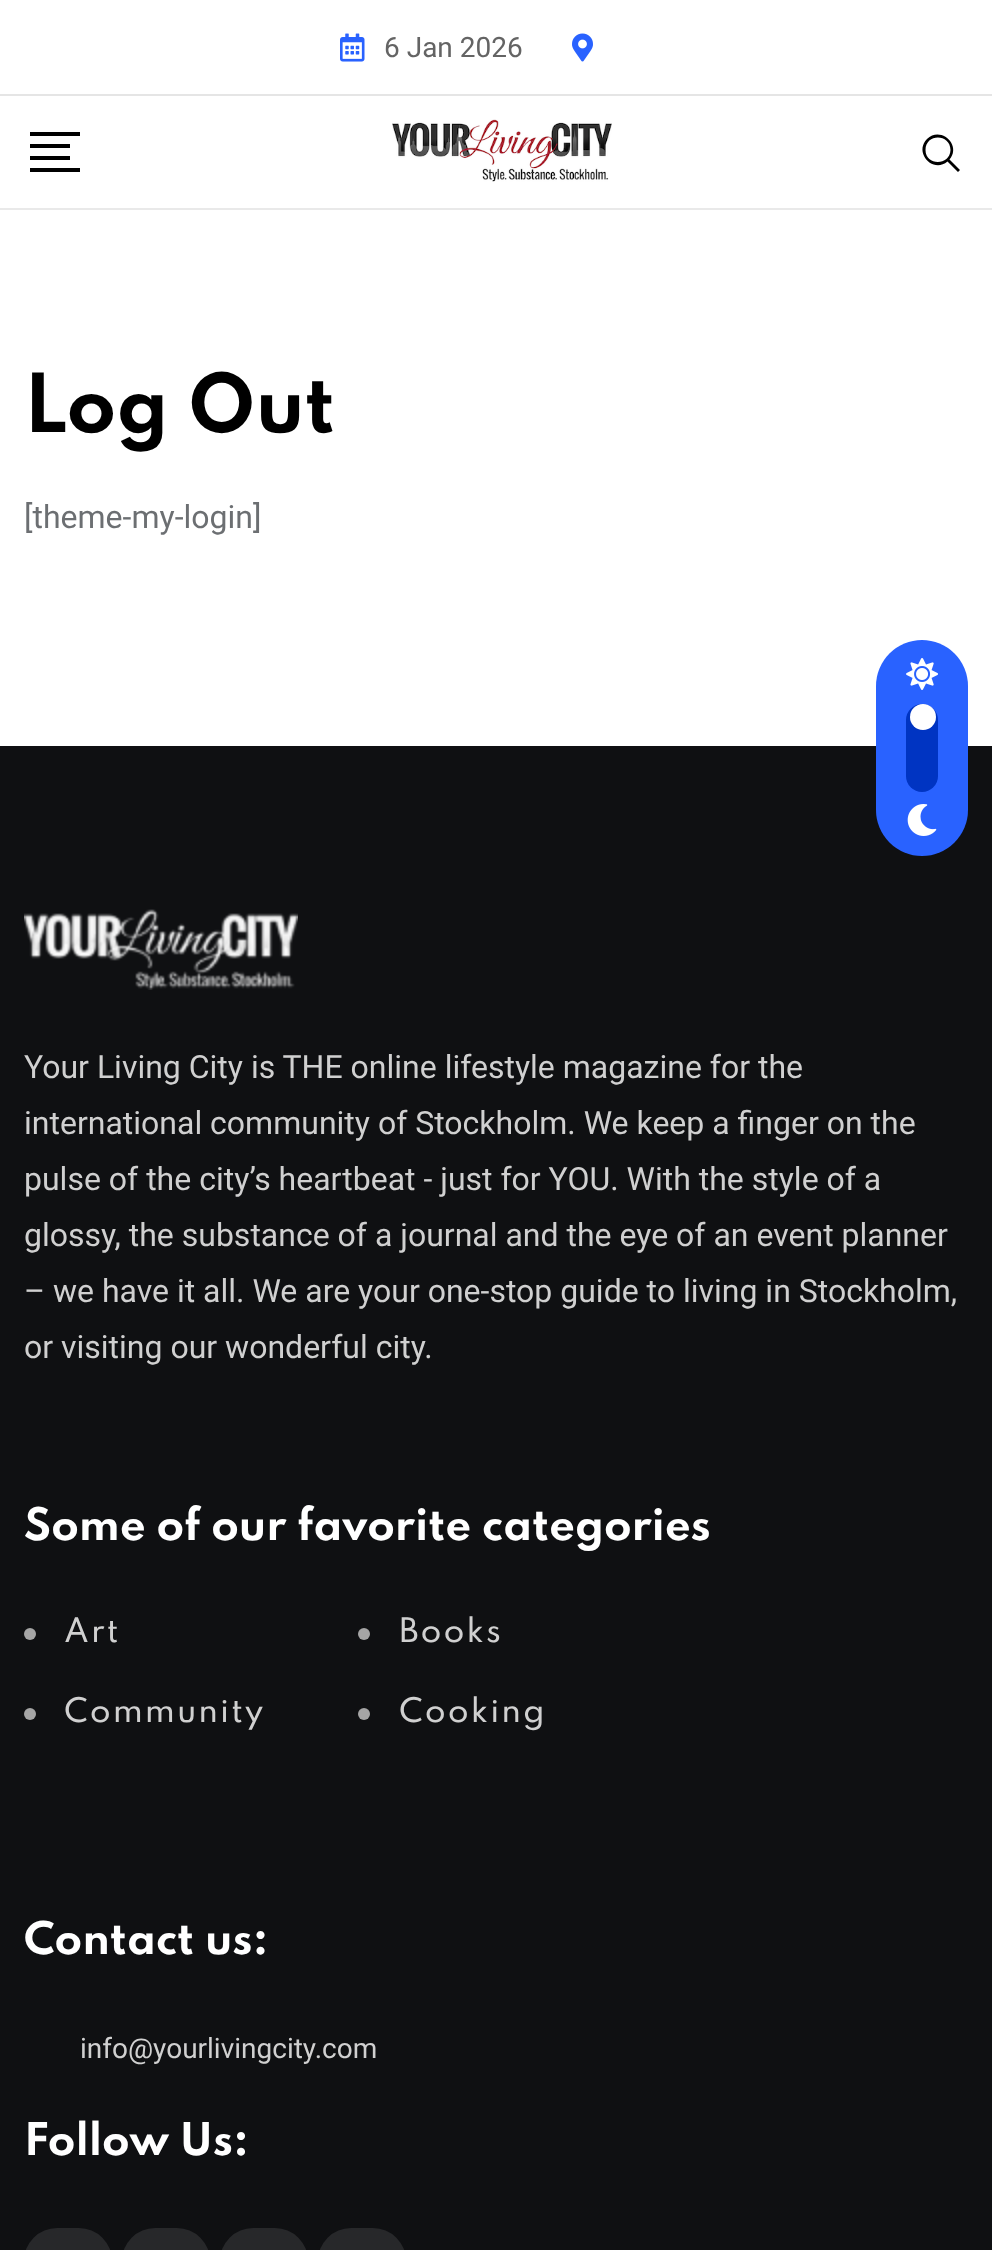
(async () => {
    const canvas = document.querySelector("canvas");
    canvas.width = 992;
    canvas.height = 2250;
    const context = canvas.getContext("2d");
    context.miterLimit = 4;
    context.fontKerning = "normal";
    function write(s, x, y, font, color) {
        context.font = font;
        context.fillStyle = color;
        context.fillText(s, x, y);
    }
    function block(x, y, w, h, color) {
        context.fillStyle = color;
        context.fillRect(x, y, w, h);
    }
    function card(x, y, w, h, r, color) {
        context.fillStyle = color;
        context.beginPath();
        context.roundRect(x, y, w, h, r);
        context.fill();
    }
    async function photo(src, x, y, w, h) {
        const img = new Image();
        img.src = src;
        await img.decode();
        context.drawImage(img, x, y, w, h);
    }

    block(0, 0, 992, 2250, "rgb(255, 255, 255)");
    block(0, 94, 992, 2, "rgb(229, 229, 229)");
    await photo("media/1.png", 340, 33, 25, 29);
    write("6 Jan 2026", 384, 57, "28px Roboto", "rgb(100, 100, 100)");
    await photo("media/2.png", 572, 33, 21, 29);
    block(0, 208, 992, 2, "rgb(233, 233, 233)");
    block(30, 132, 50, 4, "rgb(0, 0, 0)");
    block(30, 144, 40, 4, "rgb(0, 0, 0)");
    block(30, 156, 40, 4, "rgb(0, 0, 0)");
    block(30, 168, 50, 4, "rgb(0, 0, 0)");
    await photo("media/3.png", 392, 119, 220, 63);
    context.beginPath();
    context.moveTo(960, 170);
    context.lineTo(949.5, 159.5);
    context.bezierCurveTo(962, 145, 940.5, 125.5, 927, 139);
    context.bezierCurveTo(913.5, 152.5, 933, 174, 947.5, 161.5);
    context.lineTo(958, 172);
    context.closePath();
    context.moveTo(925.5, 150);
    context.bezierCurveTo(925.5, 133, 950.5, 133.5, 950.5, 150);
    context.bezierCurveTo(950, 166, 925.5, 166, 925.5, 150);
    context.closePath();
    context.fill();
    write("Log Out", 24, 432, "bold 72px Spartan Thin", "rgb(0, 0, 0)");
    write("[theme-my-login]", 24, 528, "32px Roboto", "rgb(108, 111, 114)");
    block(0, 746, 992, 1504, "rgb(15, 16, 18)");
    await photo("media/4.png", 24, 909, 274, 81);
    write("Your Living City is THE online lifestyle magazine for the", 24, 1078, "32px Roboto", "rgb(208, 208, 208)");
    write("international community of Stockholm. We keep a finger on the", 24, 1134, "32px Roboto", "rgb(208, 208, 208)");
    write("pulse of the city’s heartbeat - just for YOU. With the style of a", 24, 1190, "32px Roboto", "rgb(208, 208, 208)");
    write("glossy, the substance of a journal and the eye of an event planner", 24, 1246, "32px Roboto", "rgb(208, 208, 208)");
    write("– we have it all. We are your one-stop guide to living in Stockholm,", 24, 1302, "32px Roboto", "rgb(208, 208, 208)");
    write("or visiting our wonderful city.", 24, 1358, "32px Roboto", "rgb(208, 208, 208)");
    write("Some of our favorite categories", 24, 1540, "bold 40px Spartan Thin", "rgb(255, 255, 255)");
    context.fillStyle = "rgb(165, 165, 165)";
    context.beginPath();
    context.arc(30, 1634, 6, 0, Math.PI * 2);
    context.fill();
    context.letterSpacing = "2px";
    write("Art", 64, 1642, "500 30px Spartan Thin", "rgb(208, 208, 208)");
    context.fillStyle = "rgb(165, 165, 165)";
    context.beginPath();
    context.arc(364, 1634, 6, 0, Math.PI * 2);
    context.fill();
    write("Books", 399, 1642, "500 30px Spartan Thin", "rgb(208, 208, 208)");
    context.fillStyle = "rgb(165, 165, 165)";
    context.beginPath();
    context.arc(30, 1714, 6, 0, Math.PI * 2);
    context.fill();
    write("Community", 64, 1722, "500 30px Spartan Thin", "rgb(208, 208, 208)");
    context.fillStyle = "rgb(165, 165, 165)";
    context.beginPath();
    context.arc(364, 1714, 6, 0, Math.PI * 2);
    context.fill();
    write("Cooking", 399, 1722, "500 30px Spartan Thin", "rgb(208, 208, 208)");
    context.letterSpacing = "0px";
    write("Contact us:", 24, 1954, "bold 40px Spartan Thin", "rgb(255, 255, 255)");
    write("info@yourlivingcity.com", 80, 2058, "28px Roboto", "rgb(208, 208, 208)");
    write("Follow Us:", 24, 2155, "bold 40px Spartan Thin", "rgb(255, 255, 255)");
    card(24, 2228, 88, 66, 44, "rgb(39, 40, 42)");
    card(122, 2228, 88, 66, 44, "rgb(39, 40, 42)");
    card(220, 2228, 88, 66, 44, "rgb(39, 40, 42)");
    card(318, 2228, 88, 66, 44, "rgb(39, 40, 42)");
    card(876, 640, 92, 216, 46, "rgb(41, 98, 255)");
    await photo("media/5.png", 906, 658, 32, 32);
    card(906, 704, 32, 88, 16, "rgb(0, 52, 194)");
    context.fillStyle = "rgb(255, 255, 255)";
    context.beginPath();
    context.arc(923, 717, 13, 0, Math.PI * 2);
    context.fill();
    await photo("media/6.png", 907, 804, 30, 32);
})();
